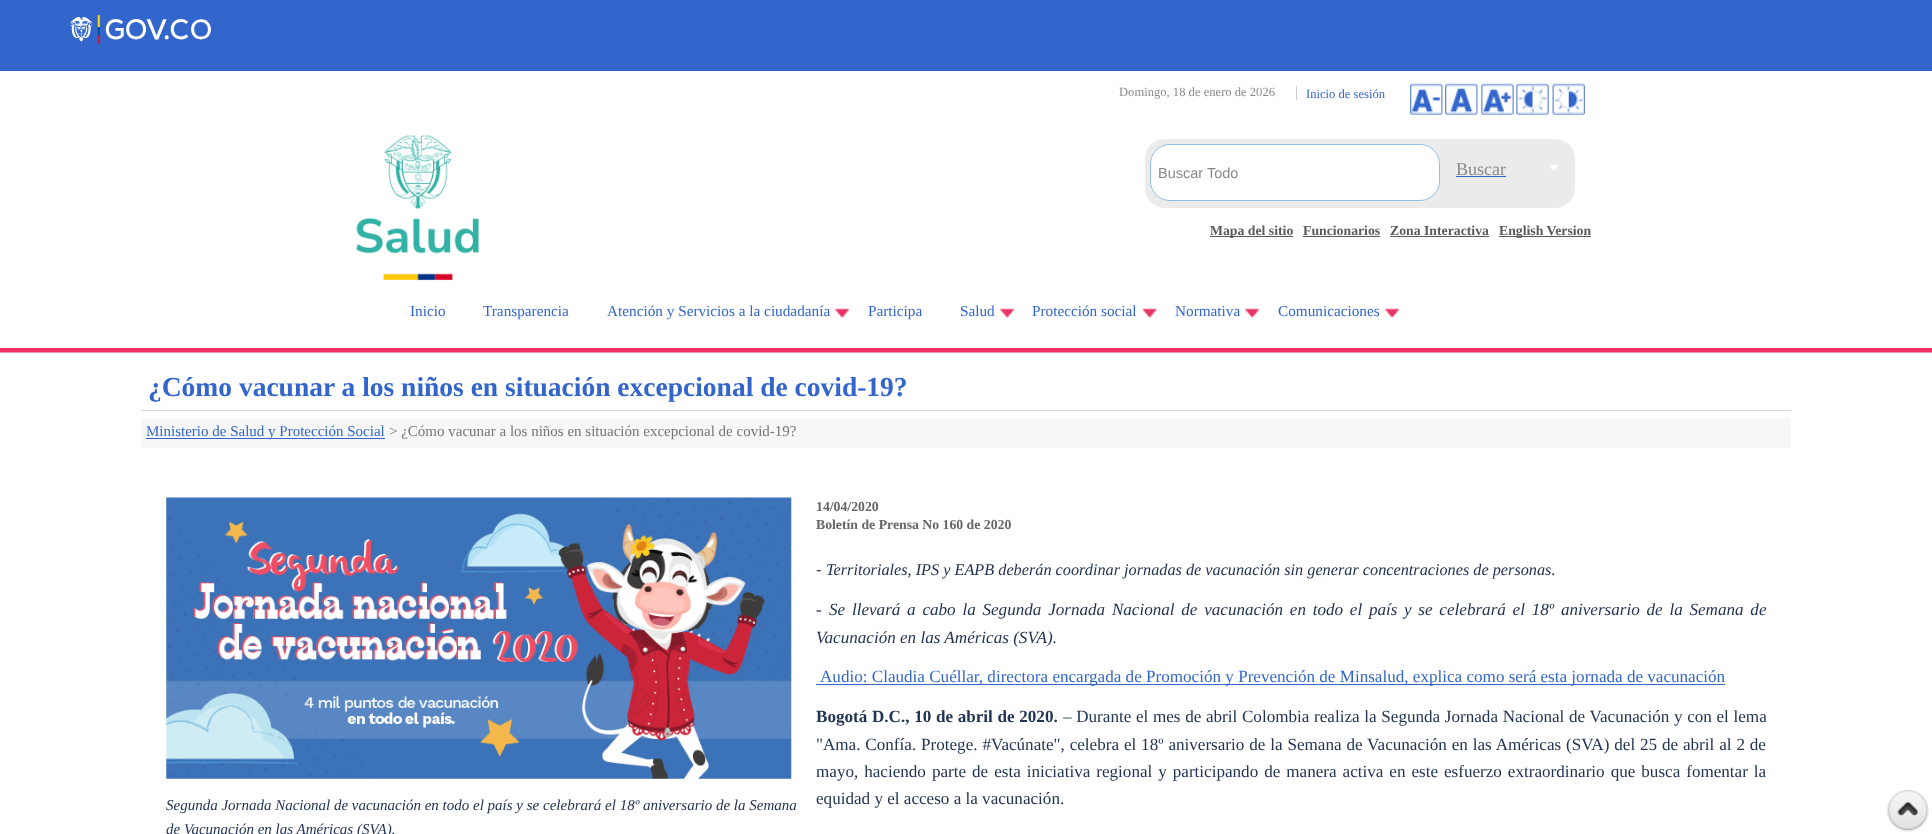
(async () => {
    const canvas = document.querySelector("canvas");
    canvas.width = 1932;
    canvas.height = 834;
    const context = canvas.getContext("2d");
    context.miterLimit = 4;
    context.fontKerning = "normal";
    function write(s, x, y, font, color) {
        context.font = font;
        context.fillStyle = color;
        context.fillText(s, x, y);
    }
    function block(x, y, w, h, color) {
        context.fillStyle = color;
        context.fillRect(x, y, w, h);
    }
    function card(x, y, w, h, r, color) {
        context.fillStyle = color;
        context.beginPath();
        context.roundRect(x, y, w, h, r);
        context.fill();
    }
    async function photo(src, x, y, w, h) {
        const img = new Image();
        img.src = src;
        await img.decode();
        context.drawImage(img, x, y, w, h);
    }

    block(0, 0, 1932, 834, "rgb(255, 255, 255)");
    block(0, 0, 1932, 71, "rgb(51, 102, 204)");
    await photo("media/1.png", 70, 15, 141, 29);
    await photo("media/2.png", 356, 135, 124, 146);
    write("Domingo, 18 de enero de 2026", 1119, 96, "12.6px Liberation Serif", "rgb(137, 137, 137)");
    block(1296, 86, 1, 14, "rgb(204, 204, 204)");
    write("Inicio de sesión", 1306, 98, "12.6px Liberation Serif", "rgb(51, 102, 204)");
    await photo("media/3.png", 1410, 83, 33, 32);
    await photo("media/4.png", 1445, 83, 33, 32);
    await photo("media/5.png", 1481, 83, 33, 32);
    await photo("media/6.png", 1516, 83, 33, 32);
    await photo("media/7.png", 1552, 83, 33, 32);
    card(1145, 139, 430, 69, 20, "rgb(235, 235, 235)");
    context.fillStyle = "rgb(255, 255, 255)";
    context.beginPath();
    context.roundRect(1150.5, 144.5, 289, 56, 19.5);
    context.fill();
    context.strokeStyle = "rgb(146, 192, 224)";
    context.stroke();
    write("Buscar Todo", 1158, 178, "14.5px Liberation Sans", "rgb(137, 137, 137)");
    write("Buscar", 1456, 175, "18px Liberation Serif", "rgb(137, 137, 137)");
    block(1456, 176, 50, 1, "rgb(51, 102, 204)");
    await photo("media/8.png", 1549, 165, 10, 6);
    block(1210, 236, 83, 1, "rgb(91, 91, 91)");
    write("Mapa del sitio", 1210, 235, "bold 13.75px Liberation Serif", "rgb(91, 91, 91)");
    write("Funcionarios", 1303, 235, "bold 13.75px Liberation Serif", "rgb(91, 91, 91)");
    block(1303, 236, 77, 1, "rgb(91, 91, 91)");
    write("Zona Interactiva", 1390, 235, "bold 13.75px Liberation Serif", "rgb(91, 91, 91)");
    block(1390, 236, 99, 1, "rgb(91, 91, 91)");
    block(1499, 236, 92, 1, "rgb(91, 91, 91)");
    write("English Version", 1499, 235, "bold 13.75px Liberation Serif", "rgb(91, 91, 91)");
    block(0, 348, 1932, 4, "rgb(244, 47, 99)");
    write("Inicio", 410, 316, "15.25px Liberation Serif", "rgb(51, 102, 204)");
    write("Transparencia", 483, 316, "15.25px Liberation Serif", "rgb(51, 102, 204)");
    await photo("media/9.png", 834, 308, 15, 10);
    write("Atención y Servicios a la ciudadanía", 607, 316, "15.25px Liberation Serif", "rgb(51, 102, 204)");
    write("Participa", 868, 316, "15.25px Liberation Serif", "rgb(51, 102, 204)");
    await photo("media/9.png", 999, 308, 15, 10);
    write("Salud", 960, 316, "15.25px Liberation Serif", "rgb(51, 102, 204)");
    await photo("media/10.png", 1142, 308, 15, 10);
    write("Protección social", 1032, 316, "15.25px Liberation Serif", "rgb(51, 102, 204)");
    await photo("media/11.png", 1244, 308, 15, 10);
    write("Normativa", 1175, 316, "15.25px Liberation Serif", "rgb(51, 102, 204)");
    await photo("media/9.png", 1384, 308, 15, 10);
    write("Comunicaciones", 1278, 316, "15.25px Liberation Serif", "rgb(51, 102, 204)");
    block(0, 352, 1932, 1, "rgb(250, 151, 177)");
    block(141, 410, 1650, 1, "rgb(215, 215, 215)");
    write("¿Cómo vacunar a los niños en situación excepcional de covid-19?", 148, 396, "bold 27.5px Liberation Serif", "rgb(51, 102, 204)");
    block(141, 418, 1650, 30, "rgb(247, 247, 247)");
    block(146, 438, 239, 1, "rgb(51, 102, 204)");
    write("Ministerio de Salud y Protección Social", 146, 436, "15px Liberation Serif", "rgb(51, 102, 204)");
    write("> ¿Cómo vacunar a los niños en situación excepcional de covid-19?", 389, 436, "15px Liberation Serif", "rgb(117, 117, 117)");
    write("14/04/2020", 816, 511, "bold 13.75px Liberation Serif", "rgb(102, 102, 102)");
    write("Boletín de Prensa No 160 de 2020", 816, 529, "bold 13.75px Liberation Serif", "rgb(102, 102, 102)");
    write("-", 816, 575, "16.25px Liberation Sans", "rgb(34, 52, 83)");
    write("Territoriales, IPS y EAPB deberán coordinar jornadas de vacunación sin generar concentraciones de personas.", 826, 575, "italic 16.25px Liberation Serif", "rgb(34, 52, 83)");
    write("-", 816, 615, "17.1px Liberation Serif", "rgb(34, 52, 83)");
    context.wordSpacing = "2.5px";
    write("Se llevará a cabo la Segunda Jornada Nacional de vacunación en todo el país", 829, 615, "italic 17.1px Liberation Serif", "rgb(34, 52, 83)");
    write("y se celebrará el 18º aniversario de la Semana de", 1404, 615, "italic 17.1px Liberation Serif", "rgb(34, 52, 83)");
    context.wordSpacing = "0px";
    write("Vacunación en las Américas (SVA).", 816, 643, "italic 17.1px Liberation Serif", "rgb(34, 52, 83)");
    block(816, 684, 909, 1, "rgb(51, 102, 204)");
    write("Audio: Claudia Cuéllar, directora encargada de Promoción y Prevención de Minsalud, explica como será esta jornada de vacunación", 820, 682, "17.1px Liberation Serif", "rgb(51, 102, 204)");
    context.wordSpacing = "0.4px";
    write("Bogotá D.C., 10 de abril de 2020.", 816, 722, "bold 17.1px Liberation Serif", "rgb(34, 52, 83)");
    write("– Durante el mes de abril Colombia realiza la Segunda Jornada Nacional de Vacunación y con el lema", 1063, 722, "17.1px Liberation Serif", "rgb(34, 52, 83)");
    context.wordSpacing = "0.6px";
    write("\"Ama. Confía. Protege. #Vacúnate\", celebra el 18º aniversario de la Semana de Vacunación en las Américas (SVA) del 25 de abril al 2 de", 816, 750, "17.1px Liberation Serif", "rgb(34, 52, 83)");
    context.wordSpacing = "1.7px";
    write("mayo, haciendo parte de esta iniciativa regional y participando de manera activa en este esfuerzo extraordinario que busca fomentar la", 816, 777, "17.1px Liberation Serif", "rgb(34, 52, 83)");
    context.wordSpacing = "0px";
    write("equidad y el acceso a la vacunación.", 816, 804, "17.1px Liberation Serif", "rgb(34, 52, 83)");
    await photo("media/12.png", 166, 497, 626, 282);
    write("Segunda Jornada Nacional de vacunación en todo el país y se celebrará el 18º aniversario de la Semana", 166, 810, "italic 15px Liberation Serif", "rgb(34, 52, 83)");
    write("de Vacunación en las Américas (SVA).", 166, 834, "italic 15px Liberation Serif", "rgb(34, 52, 83)");
    await photo("media/13.png", 1887, 790, 42, 42);
})();
